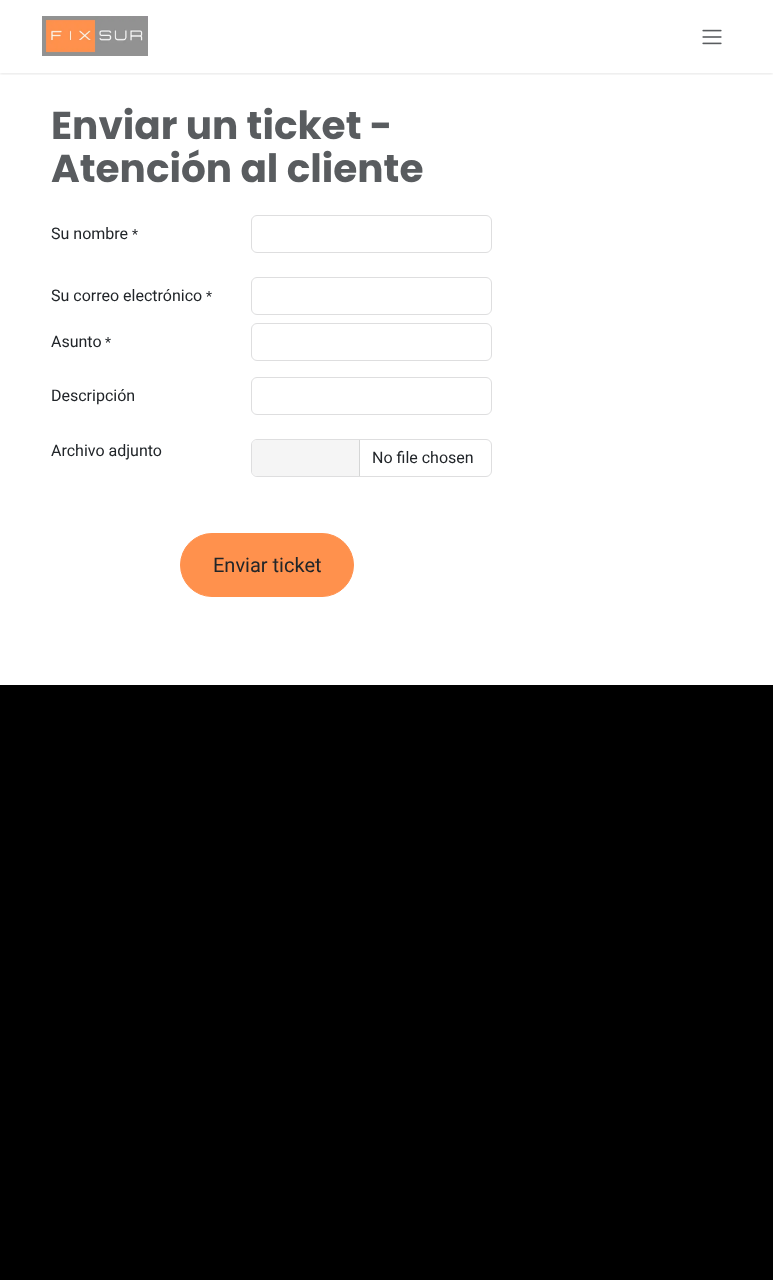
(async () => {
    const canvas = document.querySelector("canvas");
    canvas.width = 773;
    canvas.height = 1280;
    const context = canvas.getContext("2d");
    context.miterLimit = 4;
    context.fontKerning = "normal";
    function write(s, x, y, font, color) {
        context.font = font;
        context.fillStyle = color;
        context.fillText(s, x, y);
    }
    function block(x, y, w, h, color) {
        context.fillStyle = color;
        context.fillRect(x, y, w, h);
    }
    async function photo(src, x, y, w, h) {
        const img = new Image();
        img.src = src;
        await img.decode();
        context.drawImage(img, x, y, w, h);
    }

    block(0, 0, 773, 1280, "rgb(255, 255, 255)");
    context.save();
    context.beginPath();
    context.rect(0, 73, 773, 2);
    context.clip();
    context.fillStyle = "rgba(0, 0, 0, 0.1)";
    context.filter = "blur(1.5px)";
    context.beginPath();
    context.rect(0, 1, 773, 73);
    context.fill();
    context.filter = "none";
    context.restore();
    await photo("media/1.png", 42, 16, 106, 40);
    await photo("media/2.png", 702, 29, 20, 16);
    write("Enviar un ticket -", 51, 139, "bold 39px Poppins", "rgb(89, 92, 95)");
    write("Atención al cliente", 51, 182, "bold 39px Poppins", "rgb(89, 92, 95)");
    write("Su nombre", 51, 239, "16px Roboto", "rgb(33, 37, 41)");
    write("*", 132, 239, "14px Roboto", "rgb(33, 37, 41)");
    context.beginPath();
    context.roundRect(251.5, 215.5, 240, 37, 5.5);
    context.strokeStyle = "rgb(222, 222, 223)";
    context.stroke();
    write("Su correo electrónico", 51, 301, "16px Roboto", "rgb(33, 37, 41)");
    write("*", 206, 301, "14px Roboto", "rgb(33, 37, 41)");
    context.beginPath();
    context.roundRect(251.5, 277.5, 240, 37, 5.5);
    context.stroke();
    write("Asunto", 51, 347, "16px Roboto", "rgb(33, 37, 41)");
    write("*", 105, 347, "14px Roboto", "rgb(33, 37, 41)");
    context.beginPath();
    context.roundRect(251.5, 323.5, 240, 37, 5.5);
    context.stroke();
    write("Descripción", 51, 401, "16px Roboto", "rgb(33, 37, 41)");
    context.beginPath();
    context.roundRect(251.5, 377.5, 240, 37, 5.5);
    context.stroke();
    write("Archivo adjunto", 51, 456, "16px Roboto", "rgb(33, 37, 41)");
    context.beginPath();
    context.roundRect(251.5, 439.5, 240, 37, 5.5);
    context.stroke();
    context.fillStyle = "rgb(245, 245, 245)";
    context.beginPath();
    context.roundRect(252, 440, 108, 36, [5, 0, 0, 5]);
    context.fill();
    block(359, 440, 1, 36, "rgb(213, 214, 214)");
    write("No file chosen", 372, 463, "16px Roboto", "rgb(33, 37, 41)");
    context.fillStyle = "rgb(255, 145, 77)";
    context.beginPath();
    context.roundRect(180.5, 533.5, 173, 63, 31.5);
    context.fill();
    context.strokeStyle = "rgb(255, 145, 77)";
    context.stroke();
    write("Enviar ticket", 213, 572, "20px Roboto", "rgb(33, 37, 41)");
    block(0, 685, 773, 595, "rgb(0, 0, 0)");
})();
